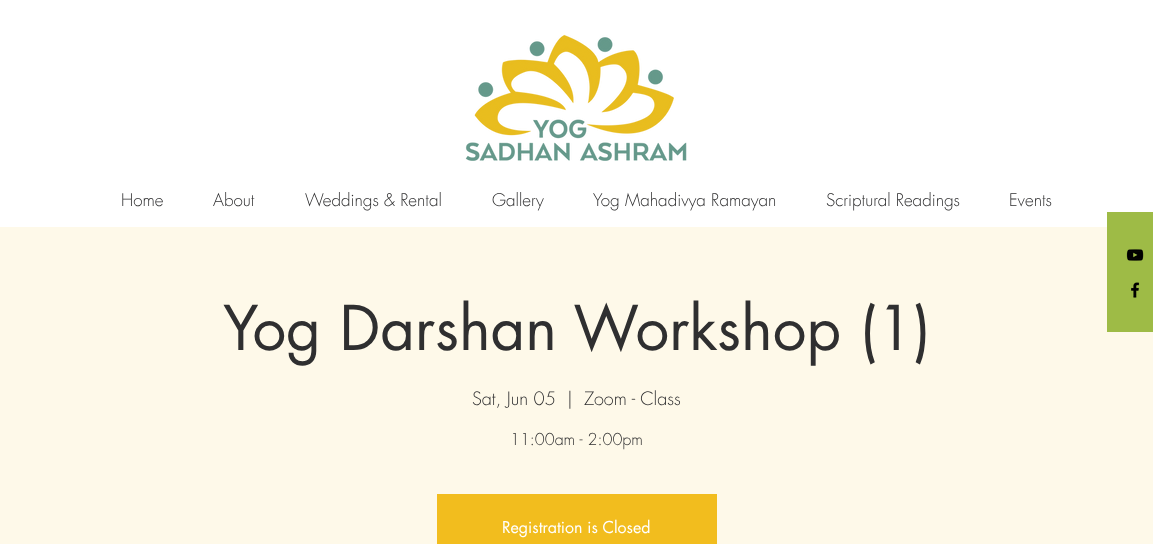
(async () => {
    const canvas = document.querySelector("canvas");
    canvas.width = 1153;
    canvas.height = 544;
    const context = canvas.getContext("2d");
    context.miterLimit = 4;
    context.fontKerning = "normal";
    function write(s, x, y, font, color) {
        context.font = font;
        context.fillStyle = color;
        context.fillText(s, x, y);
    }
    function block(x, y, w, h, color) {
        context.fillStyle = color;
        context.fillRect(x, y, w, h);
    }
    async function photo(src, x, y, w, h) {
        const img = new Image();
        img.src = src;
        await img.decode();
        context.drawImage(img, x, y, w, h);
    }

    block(0, 0, 1153, 544, "rgb(255, 255, 255)");
    await photo("media/1.png", 465, 34, 222, 127);
    write("Home", 121, 206, "300 17px futura", "rgb(47, 47, 48)");
    write("About", 213, 206, "300 17px futura", "rgb(47, 47, 48)");
    write("Weddings & Rental", 305, 206, "300 17px futura", "rgb(47, 47, 48)");
    write("Gallery", 492, 206, "300 17px futura", "rgb(47, 47, 48)");
    write("Yog Mahadivya Ramayan", 593, 206, "300 17px futura", "rgb(47, 47, 48)");
    write("Scriptural Readings", 826, 206, "300 17px futura", "rgb(47, 47, 48)");
    write("Events", 1009, 206, "300 17px futura", "rgb(47, 47, 48)");
    block(0, 227, 1153, 317, "rgb(254, 249, 233)");
    block(1107, 212, 46, 120, "rgb(158, 187, 70)");
    await photo("media/2.png", 1126, 249, 18, 12);
    await photo("media/3.png", 1131, 282, 9, 16);
    write("Yog Darshan Workshop (1)", 223, 350, "60px futura", "rgb(47, 47, 48)");
    write("Sat, Jun 05", 472, 405, "300 18px futura", "rgb(47, 47, 48)");
    write("|", 567, 405, "300 18px futura", "rgb(47, 47, 48)");
    write("Zoom - Class", 584, 405, "300 18px futura", "rgb(47, 47, 48)");
    write("11:00am - 2:00pm", 510, 445, "300 16px futura", "rgb(47, 47, 48)");
    block(437, 494, 280, 50, "rgb(242, 189, 30)");
    write("Registration is Closed", 502, 533, "16px futura", "rgb(255, 255, 255)");
})();
